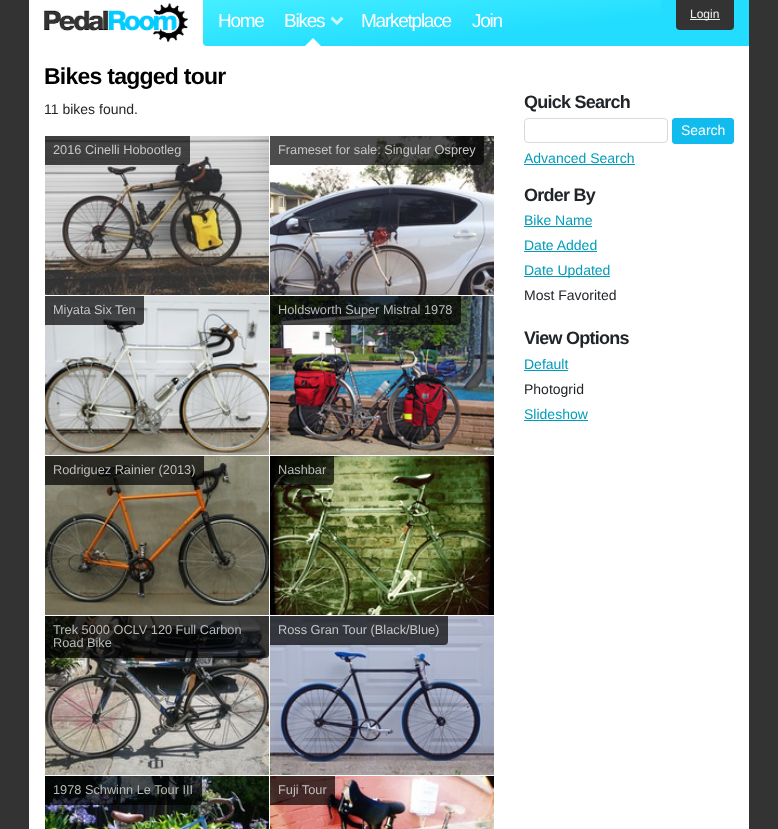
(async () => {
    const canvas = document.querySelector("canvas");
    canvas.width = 778;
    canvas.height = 829;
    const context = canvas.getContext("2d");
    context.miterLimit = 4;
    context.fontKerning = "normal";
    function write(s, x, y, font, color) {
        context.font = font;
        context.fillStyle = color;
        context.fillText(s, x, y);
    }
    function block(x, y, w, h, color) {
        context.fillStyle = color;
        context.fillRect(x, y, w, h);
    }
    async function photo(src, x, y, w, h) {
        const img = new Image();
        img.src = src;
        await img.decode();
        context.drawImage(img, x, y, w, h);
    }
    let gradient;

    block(0, 0, 778, 829, "rgb(51, 51, 51)");
    block(29, 0, 720, 829, "rgb(255, 255, 255)");
    await photo("media/1.png", 44, 3, 144, 39);
    gradient = context.createLinearGradient(427, -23, 437, 69);
    gradient.addColorStop(0, "rgb(68, 238, 255)");
    gradient.addColorStop(0.7, "rgb(34, 221, 255)");
    context.fillStyle = gradient;
    context.beginPath();
    context.roundRect(203, 0, 458, 46, [0, 0, 0, 4]);
    context.fill();
    context.letterSpacing = "-1.25px";
    write("Home", 218, 27, "19px Liberation Sans", "rgb(255, 255, 255)");
    write("Bikes", 284, 27, "19px Liberation Sans", "rgb(255, 255, 255)");
    context.fillStyle = "rgba(255, 255, 255, 0.7)";
    context.beginPath();
    context.moveTo(343.5, 19);
    context.lineTo(337, 25);
    context.lineTo(337, 21);
    context.lineTo(341, 16.5);
    context.closePath();
    context.moveTo(337, 25);
    context.lineTo(330.5, 19);
    context.lineTo(332.5, 16.5);
    context.lineTo(337, 21);
    context.closePath();
    context.fill();
    context.fillStyle = "rgb(255, 255, 255)";
    context.beginPath();
    context.moveTo(321, 46);
    context.lineTo(305, 46);
    context.lineTo(313, 38);
    context.closePath();
    context.fill();
    write("Marketplace", 361, 27, "19px Liberation Sans", "rgb(255, 255, 255)");
    write("Join", 472, 27, "19px Liberation Sans", "rgb(255, 255, 255)");
    block(661, 0, 88, 46, "rgb(34, 221, 255)");
    context.fillStyle = "rgb(51, 51, 51)";
    context.beginPath();
    context.roundRect(676, 0, 58, 30, [0, 0, 4, 4]);
    context.fill();
    block(690, 19, 30, 1, "rgb(242, 242, 242)");
    context.letterSpacing = "0px";
    write("Login", 690, 18, "12px Liberation Sans", "rgb(242, 242, 242)");
    context.letterSpacing = "-0.75px";
    write("Bikes tagged tour", 44, 84, "bold 23px Liberation Sans", "rgb(0, 0, 0)");
    context.letterSpacing = "0px";
    write("11 bikes found.", 44, 114, "14px Liberation Sans", "rgb(33, 37, 41)");
    await photo("media/2.png", 45, 136, 224, 159);
    context.fillStyle = "rgba(0, 0, 0, 0.7)";
    context.beginPath();
    context.roundRect(45, 136, 145, 29, [0, 0, 4, 0]);
    context.fill();
    write("2016 Cinelli Hobootleg", 53, 154, "12.75px Liberation Sans", "rgb(198, 198, 198)");
    await photo("media/3.png", 270, 136, 224, 159);
    context.fillStyle = "rgba(0, 0, 0, 0.7)";
    context.beginPath();
    context.roundRect(270, 136, 214, 29, [0, 0, 4, 0]);
    context.fill();
    write("Frameset for sale: Singular Osprey", 278, 154, "12.75px Liberation Sans", "rgb(198, 198, 198)");
    await photo("media/4.png", 45, 296, 224, 159);
    context.fillStyle = "rgba(0, 0, 0, 0.7)";
    context.beginPath();
    context.roundRect(45, 296, 99, 29, [0, 0, 4, 0]);
    context.fill();
    write("Miyata Six Ten", 53, 314, "12.75px Liberation Sans", "rgb(198, 198, 198)");
    await photo("media/5.png", 270, 296, 224, 159);
    context.fillStyle = "rgba(0, 0, 0, 0.7)";
    context.beginPath();
    context.roundRect(270, 296, 191, 29, [0, 0, 4, 0]);
    context.fill();
    write("Holdsworth Super Mistral 1978", 278, 314, "12.75px Liberation Sans", "rgb(184, 186, 185)");
    await photo("media/6.png", 45, 456, 224, 159);
    context.fillStyle = "rgba(0, 0, 0, 0.7)";
    context.beginPath();
    context.roundRect(45, 456, 159, 29, [0, 0, 4, 0]);
    context.fill();
    write("Rodriguez Rainier (2013)", 53, 474, "12.75px Liberation Sans", "rgb(190, 190, 188)");
    await photo("media/7.png", 270, 456, 224, 159);
    context.fillStyle = "rgba(0, 0, 0, 0.7)";
    context.beginPath();
    context.roundRect(270, 456, 64, 29, [0, 0, 4, 0]);
    context.fill();
    write("Nashbar", 278, 474, "12.75px Liberation Sans", "rgb(184, 186, 185)");
    await photo("media/8.png", 45, 616, 224, 159);
    context.fillStyle = "rgba(0, 0, 0, 0.7)";
    context.beginPath();
    context.roundRect(45, 616, 224, 42, [0, 0, 4, 0]);
    context.fill();
    write("Trek 5000 OCLV 120 Full Carbon", 53, 634, "12.75px Liberation Sans", "rgb(184, 186, 185)");
    write("Road Bike", 53, 647, "12.75px Liberation Sans", "rgb(184, 186, 185)");
    await photo("media/9.png", 270, 616, 224, 159);
    context.fillStyle = "rgba(0, 0, 0, 0.7)";
    context.beginPath();
    context.roundRect(270, 616, 178, 29, [0, 0, 4, 0]);
    context.fill();
    write("Ross Gran Tour (Black/Blue)", 278, 634, "12.75px Liberation Sans", "rgb(198, 198, 198)");
    await photo("media/10.png", 45, 776, 224, 53);
    context.fillStyle = "rgba(0, 0, 0, 0.7)";
    context.beginPath();
    context.roundRect(45, 776, 157, 29, [0, 0, 4, 0]);
    context.fill();
    write("1978 Schwinn Le Tour III", 53, 794, "12.75px Liberation Sans", "rgb(184, 186, 185)");
    await photo("media/11.png", 270, 776, 224, 53);
    context.fillStyle = "rgba(0, 0, 0, 0.7)";
    context.beginPath();
    context.roundRect(270, 776, 65, 29, [0, 0, 4, 0]);
    context.fill();
    write("Fuji Tour", 278, 794, "12.75px Liberation Sans", "rgb(199, 191, 191)");
    context.letterSpacing = "-0.75px";
    write("Quick Search", 524, 108, "bold 18px Liberation Sans", "rgb(33, 37, 41)");
    context.beginPath();
    context.roundRect(524.5, 118.5, 143, 24, 3.5);
    context.strokeStyle = "rgb(217, 217, 217)";
    context.stroke();
    context.fillStyle = "rgb(17, 187, 238)";
    context.beginPath();
    context.roundRect(672.5, 118.5, 61, 25, 2.5);
    context.fill();
    context.strokeStyle = "rgb(17, 187, 238)";
    context.stroke();
    context.letterSpacing = "0px";
    write("Search", 681, 135, "14px Liberation Sans", "rgb(255, 255, 255)");
    write("Advanced Search", 524, 163, "14px Liberation Sans", "rgb(0, 156, 186)");
    block(524, 164, 111, 1, "rgb(0, 156, 186)");
    context.letterSpacing = "-0.75px";
    write("Order By", 524, 201, "bold 18px Liberation Sans", "rgb(33, 37, 41)");
    context.letterSpacing = "0px";
    write("Bike Name", 524, 225, "14px Liberation Sans", "rgb(0, 156, 186)");
    block(524, 226, 68, 1, "rgb(0, 156, 186)");
    write("Date Added", 524, 250, "14px Liberation Sans", "rgb(0, 156, 186)");
    block(524, 251, 73, 1, "rgb(0, 156, 186)");
    block(524, 276, 86, 1, "rgb(0, 156, 186)");
    write("Date Updated", 524, 275, "14px Liberation Sans", "rgb(0, 156, 186)");
    write("Most Favorited", 524, 300, "14px Liberation Sans", "rgb(33, 37, 41)");
    context.letterSpacing = "-0.75px";
    write("View Options", 524, 344, "bold 18px Liberation Sans", "rgb(33, 37, 41)");
    context.letterSpacing = "0px";
    write("Default", 524, 369, "14px Liberation Sans", "rgb(0, 156, 186)");
    block(524, 370, 44, 1, "rgb(0, 156, 186)");
    write("Photogrid", 524, 394, "14px Liberation Sans", "rgb(33, 37, 41)");
    write("Slideshow", 524, 419, "14px Liberation Sans", "rgb(0, 156, 186)");
    block(524, 420, 64, 1, "rgb(0, 156, 186)");
})();
